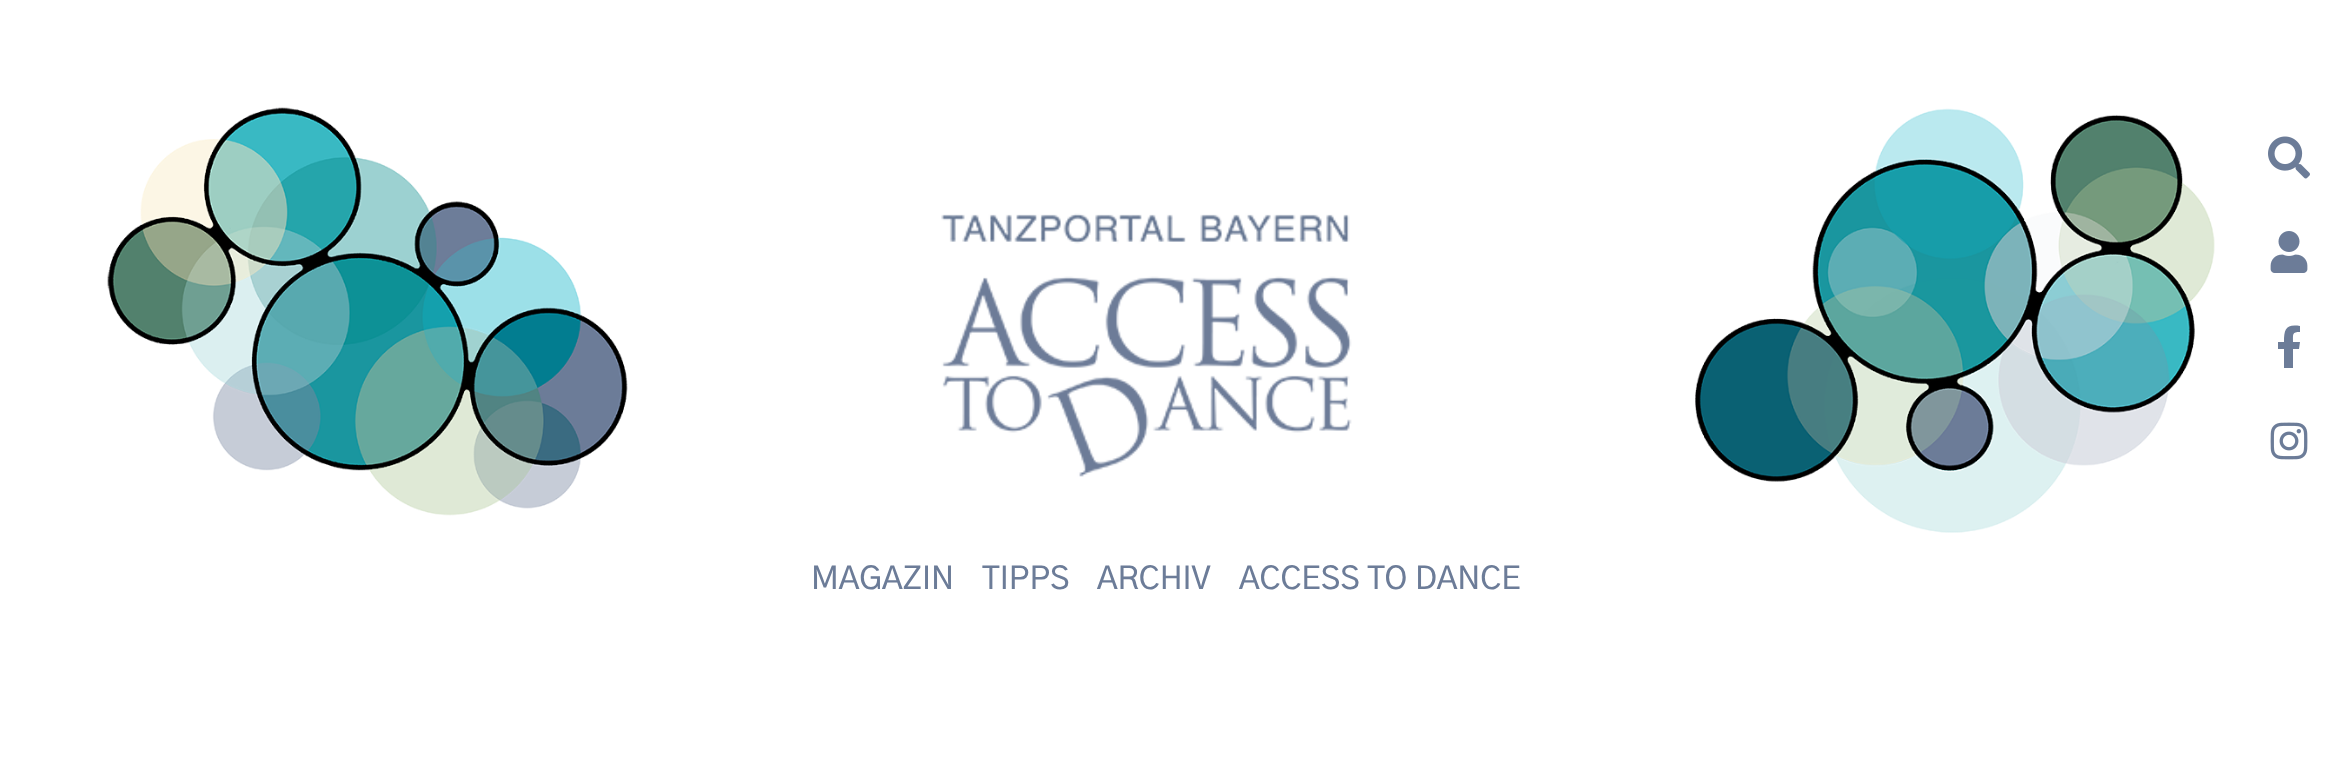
(async () => {
    const canvas = document.querySelector("canvas");
    canvas.width = 2330;
    canvas.height = 778;
    const context = canvas.getContext("2d");
    context.miterLimit = 4;
    context.fontKerning = "normal";
    function write(s, x, y, font, color) {
        context.font = font;
        context.fillStyle = color;
        context.fillText(s, x, y);
    }
    function block(x, y, w, h, color) {
        context.fillStyle = color;
        context.fillRect(x, y, w, h);
    }
    async function photo(src, x, y, w, h) {
        const img = new Image();
        img.src = src;
        await img.decode();
        context.drawImage(img, x, y, w, h);
    }

    block(0, 0, 2330, 778, "rgb(255, 255, 255)");
    await photo("media/1.png", 2268, 136, 42, 43);
    await photo("media/2.png", 2270, 231, 38, 42);
    context.fillStyle = "rgb(108, 124, 152)";
    context.beginPath();
    context.moveTo(2299, 349);
    context.lineTo(2300, 342);
    context.lineTo(2293, 342);
    context.bezierCurveTo(2293, 334, 2292, 332, 2300, 332);
    context.lineTo(2300, 326);
    context.bezierCurveTo(2286, 324, 2284, 329, 2284, 342);
    context.lineTo(2278, 342);
    context.lineTo(2278, 349);
    context.lineTo(2284, 349);
    context.lineTo(2284, 368);
    context.lineTo(2293, 368);
    context.lineTo(2293, 349);
    context.closePath();
    context.fill();
    await photo("media/3.png", 2270, 422, 38, 38);
    await photo("media/4.png", 107, 107, 521, 409);
    await photo("media/5.png", 941, 213, 411, 264);
    await photo("media/6.png", 1695, 108, 520, 425);
    write("MAGAZIN", 811, 589, "500 31.5px 'Gothic A1'", "rgb(108, 124, 152)");
    write("TIPPS", 982, 589, "500 31.5px 'Gothic A1'", "rgb(108, 124, 152)");
    write("ARCHIV", 1097, 589, "500 31.5px 'Gothic A1'", "rgb(108, 124, 152)");
    write("ACCESS TO DANCE", 1239, 589, "500 31.5px 'Gothic A1'", "rgb(108, 124, 152)");
})();
